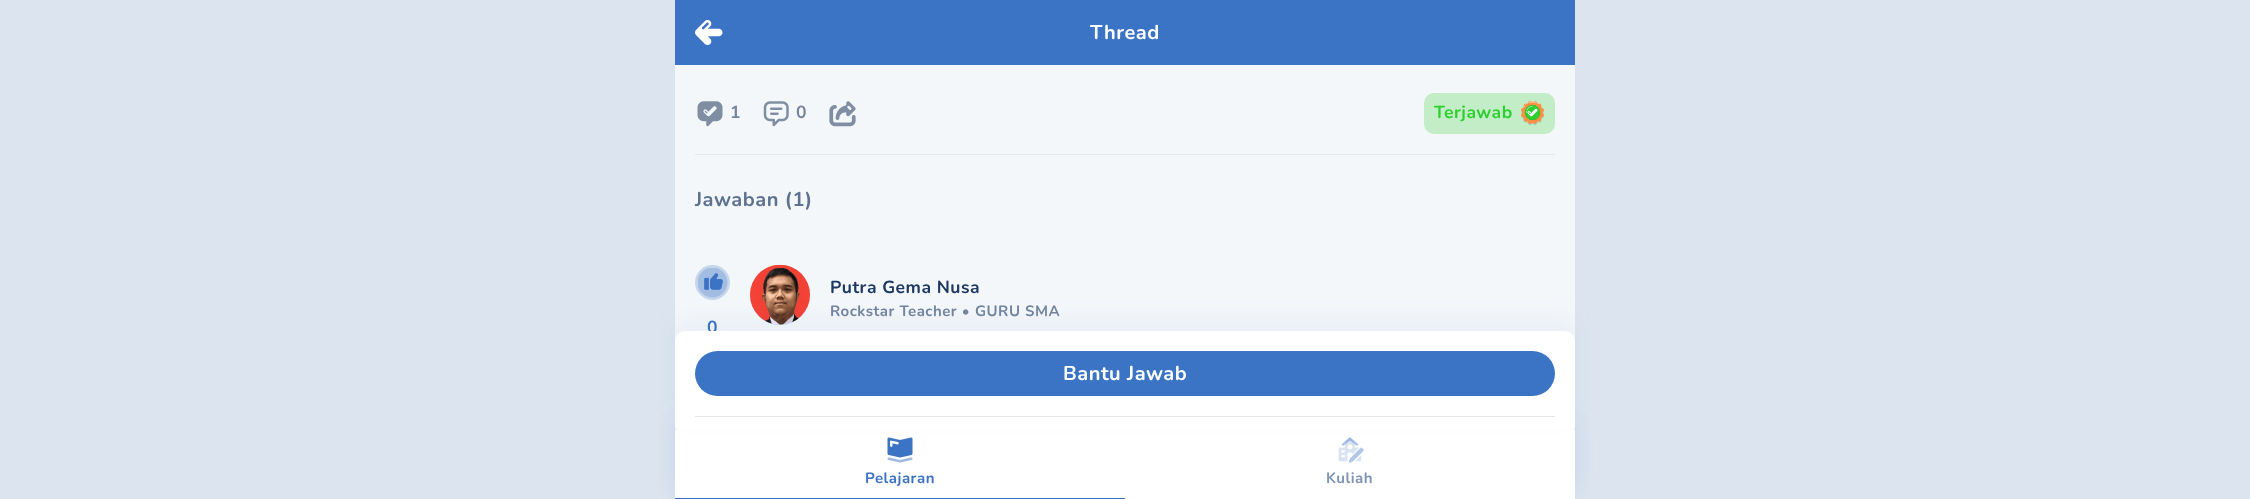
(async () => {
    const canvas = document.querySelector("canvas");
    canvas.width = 2250;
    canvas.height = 499;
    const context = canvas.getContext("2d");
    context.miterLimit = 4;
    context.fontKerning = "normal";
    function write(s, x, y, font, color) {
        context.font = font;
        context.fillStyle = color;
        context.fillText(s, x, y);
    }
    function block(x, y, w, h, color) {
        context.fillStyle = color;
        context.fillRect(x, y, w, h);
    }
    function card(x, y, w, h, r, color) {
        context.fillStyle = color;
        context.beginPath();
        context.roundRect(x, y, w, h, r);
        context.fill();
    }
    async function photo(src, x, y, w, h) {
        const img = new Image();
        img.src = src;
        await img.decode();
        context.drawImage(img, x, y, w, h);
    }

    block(0, 0, 2250, 499, "rgb(220, 229, 239)");
    block(675, 0, 900, 65, "rgb(59, 115, 197)");
    await photo("media/1.png", 695, 20, 28, 25);
    context.letterSpacing = "0.5px";
    write("Thread", 1090, 39, "bold 20px Nunito", "rgb(255, 255, 255)");
    block(675, 65, 900, 368, "rgb(244, 247, 250)");
    await photo("media/2.png", 697, 101, 26, 26);
    write("1", 730, 118, "bold 17.5px Nunito", "rgb(115, 133, 159)");
    await photo("media/3.png", 763, 101, 26, 26);
    write("0", 796, 118, "bold 17.5px Nunito", "rgb(115, 133, 159)");
    await photo("media/4.png", 829, 101, 27, 26);
    card(1424, 93, 131, 41, 10, "rgb(195, 237, 199)");
    write("Terjawab", 1434, 118, "bold 17.5px Nunito", "rgb(46, 207, 47)");
    await photo("media/5.png", 1521, 101, 23, 25);
    block(695, 154, 860, 1, "rgb(229, 231, 235)");
    write("Jawaban (1)", 695, 206, "bold 20px Nunito", "rgb(94, 114, 144)");
    context.fillStyle = "rgb(189, 207, 234)";
    context.beginPath();
    context.arc(780, 295, 30, 0, Math.PI * 2);
    context.fill();
    await photo("media/6.png", 750, 264, 60, 61);
    write("Putra Gema Nusa", 830, 293, "bold 17.5px Nunito", "rgb(29, 57, 98)");
    write("Rockstar Teacher •", 830, 316, "bold 15px Nunito", "rgb(115, 133, 159)");
    write("GURU SMA", 975, 316, "bold 15px Nunito", "rgb(115, 133, 159)");
    context.fillStyle = "rgb(198, 214, 237)";
    context.beginPath();
    context.arc(712.5, 282.5, 17.5, 0, Math.PI * 2);
    context.fill();
    await photo("media/7.png", 698, 268, 30, 30);
    write("0", 707, 333, "bold 17.5px Nunito", "rgb(59, 115, 197)");
    context.fillStyle = "rgba(59, 115, 197, 0.15)";
    context.filter = "blur(12.5px)";
    context.beginPath();
    context.roundRect(675, 416, 900, 78, 10);
    context.fill();
    context.filter = "none";
    context.fillStyle = "rgb(255, 255, 255)";
    context.beginPath();
    context.moveTo(685, 423);
    context.lineTo(1565, 423);
    context.bezierCurveTo(1570.5, 423, 1575, 427.5, 1575, 433);
    context.lineTo(1575, 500);
    context.lineTo(675, 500);
    context.lineTo(675, 433);
    context.bezierCurveTo(675, 427.5, 679.5, 423, 685, 423);
    context.closePath();
    context.fill();
    await photo("media/8.png", 887, 437, 26, 26);
    await photo("media/9.png", 1338, 437, 26, 26);
    context.fillStyle = "rgba(32, 93, 183, 0.05)";
    context.filter = "blur(12.5px)";
    context.beginPath();
    context.roundRect(675, 319, 900, 96, 10);
    context.fill();
    context.filter = "none";
    context.fillStyle = "rgb(255, 255, 255)";
    context.beginPath();
    context.roundRect(675, 331, 900, 97, [10, 10, 0, 0]);
    context.fill();
    card(695, 351, 860, 45, 22.5, "rgb(59, 115, 197)");
    write("Bantu Jawab", 1063, 380, "bold 20px Nunito", "rgb(255, 255, 255)");
    block(695, 416, 860, 1, "rgb(229, 231, 235)");
    block(675, 498, 450, 1, "rgb(59, 115, 197)");
    write("Pelajaran", 865, 483, "bold 15px Nunito", "rgb(59, 115, 197)");
    write("Kuliah", 1326, 483, "bold 15px Nunito", "rgb(126, 148, 179)");
})();
